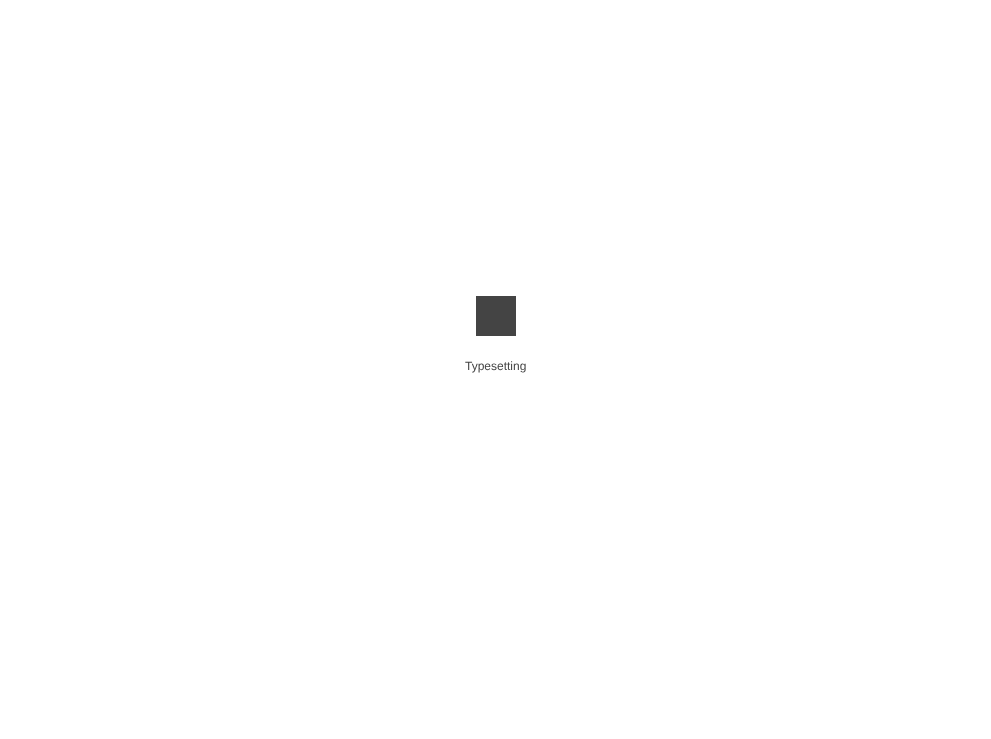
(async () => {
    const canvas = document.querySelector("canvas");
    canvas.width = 991;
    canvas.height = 739;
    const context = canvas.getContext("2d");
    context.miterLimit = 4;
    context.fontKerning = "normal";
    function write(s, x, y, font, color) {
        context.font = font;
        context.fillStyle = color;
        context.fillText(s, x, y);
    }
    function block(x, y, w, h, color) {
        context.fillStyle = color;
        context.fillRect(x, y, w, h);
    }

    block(0, 0, 991, 739, "rgb(255, 255, 255)");
    block(476, 296, 40, 40, "rgb(68, 68, 68)");
    write("Typesetting", 465, 370, "12px Liberation Sans", "rgb(68, 68, 68)");
})();
